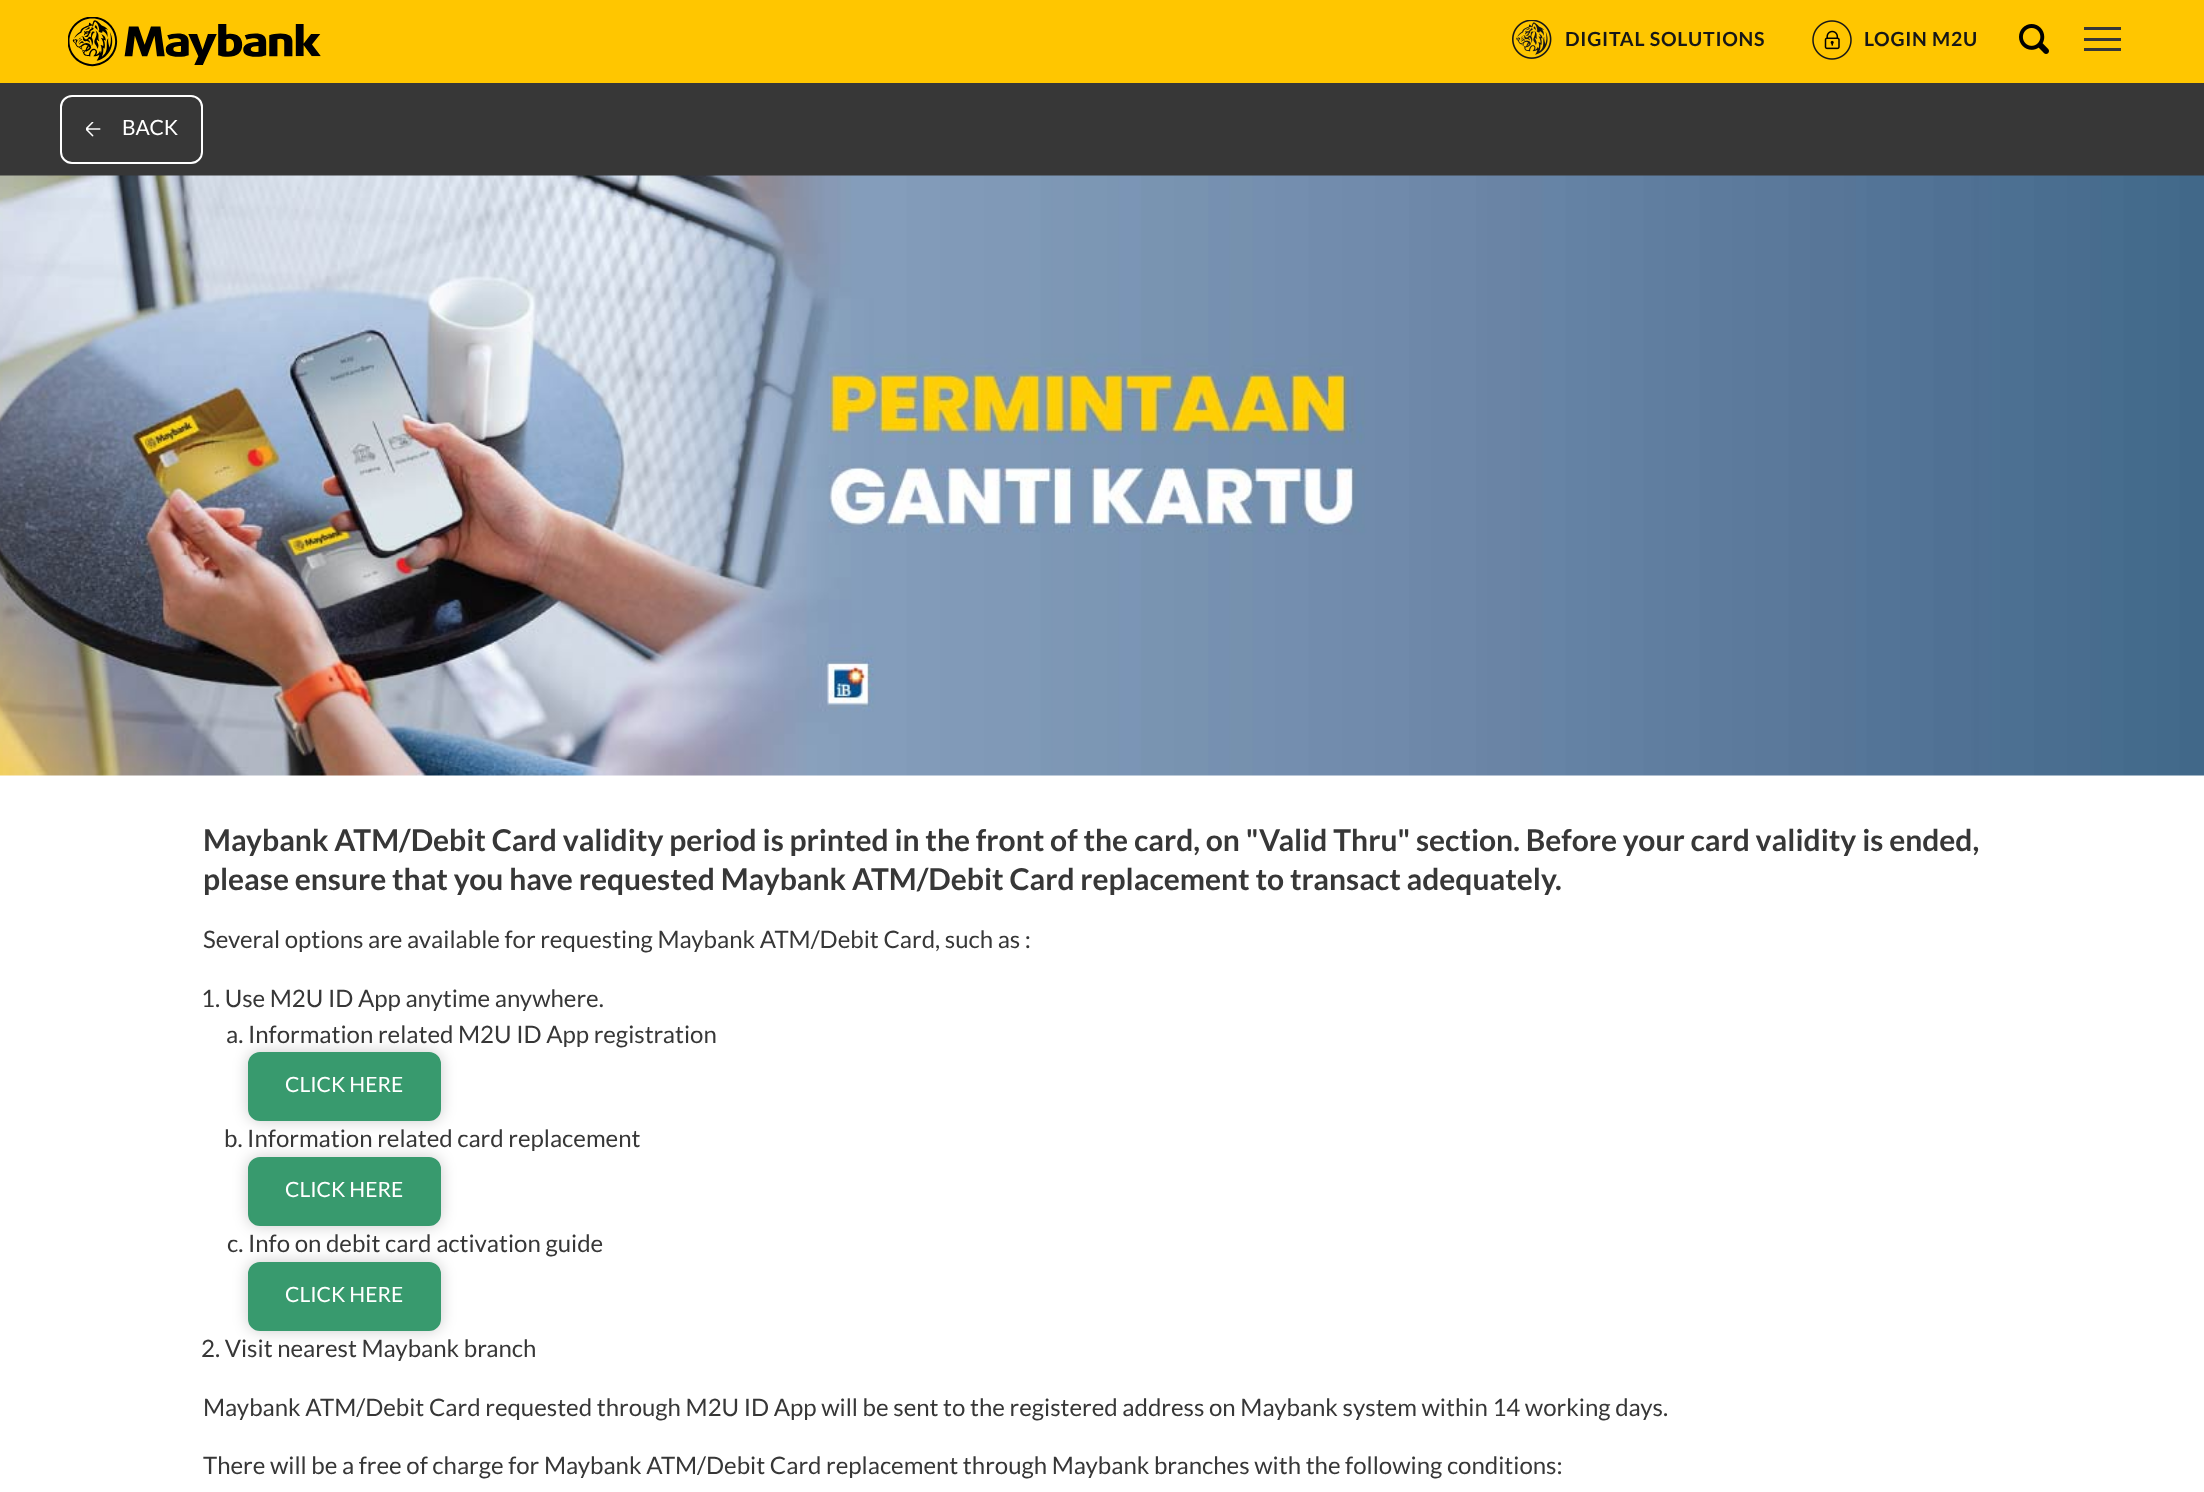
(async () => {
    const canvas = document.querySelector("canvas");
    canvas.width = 2204;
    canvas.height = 1492;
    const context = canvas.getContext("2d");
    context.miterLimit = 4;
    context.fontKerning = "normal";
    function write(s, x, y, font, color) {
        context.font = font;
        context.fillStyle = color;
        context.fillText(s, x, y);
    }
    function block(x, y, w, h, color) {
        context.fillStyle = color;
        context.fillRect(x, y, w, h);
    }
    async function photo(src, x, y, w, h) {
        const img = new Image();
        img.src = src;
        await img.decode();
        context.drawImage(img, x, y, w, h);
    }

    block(0, 0, 2204, 1492, "rgb(255, 255, 255)");
    block(0, 0, 2204, 83, "rgb(255, 198, 0)");
    await photo("media/1.png", 68, 17, 253, 50);
    await photo("media/2.png", 1512, 20, 40, 39);
    context.letterSpacing = "0.75px";
    write("DIGITAL SOLUTIONS", 1565, 46, "bold 19.5px Lato", "rgb(23, 23, 23)");
    await photo("media/3.png", 1812, 20, 40, 40);
    write("LOGIN M2U", 1864, 46, "bold 19.5px Lato", "rgb(23, 23, 23)");
    await photo("media/4.png", 2019, 24, 30, 30);
    block(2084, 27, 37, 3, "rgb(55, 55, 55)");
    block(2084, 38, 37, 3, "rgb(55, 55, 55)");
    block(2084, 48, 37, 3, "rgb(55, 55, 55)");
    block(0, 83, 2204, 93, "rgb(55, 55, 55)");
    context.beginPath();
    context.roundRect(61, 96, 141, 67, 11);
    context.strokeStyle = "rgb(255, 255, 255)";
    context.lineWidth = 2;
    context.stroke();
    await photo("media/5.png", 86, 122, 15, 15);
    context.letterSpacing = "0px";
    write("BACK", 122, 135, "21px Lato", "rgb(255, 255, 255)");
    await photo("media/6.png", 0, 175, 2204, 601);
    write("Maybank ATM/Debit Card validity period is printed in the front of the card, on \"Valid Thru\" section. Before your card validity is ended,", 203, 851, "bold 30px Lato", "rgb(55, 55, 55)");
    write("please ensure that you have requested Maybank ATM/Debit Card replacement to transact adequately.", 203, 890, "bold 30px Lato", "rgb(55, 55, 55)");
    write("Several options are available for requesting Maybank ATM/Debit Card, such as :", 203, 948, "24px Lato", "rgb(55, 55, 55)");
    write("1. Use M2U ID App anytime anywhere.", 201, 1007, "24px Lato", "rgb(55, 55, 55)");
    write("a. Information related M2U ID App registration", 226, 1043, "24px Lato", "rgb(55, 55, 55)");
    context.fillStyle = "rgba(0, 0, 0, 0.2)";
    context.filter = "blur(7.5px)";
    context.beginPath();
    context.roundRect(248, 1052, 193, 69, 12);
    context.fill();
    context.filter = "none";
    context.fillStyle = "rgb(56, 154, 110)";
    context.beginPath();
    context.roundRect(249, 1053, 191, 67, 11);
    context.fill();
    context.strokeStyle = "rgb(56, 154, 110)";
    context.stroke();
    write("CLICK HERE", 285, 1092, "21px Lato", "rgb(255, 255, 255)");
    write("b. Information related card replacement", 224, 1147, "24px Lato", "rgb(55, 55, 55)");
    context.fillStyle = "rgba(0, 0, 0, 0.2)";
    context.filter = "blur(7.5px)";
    context.beginPath();
    context.roundRect(248, 1157, 193, 69, 12);
    context.fill();
    context.filter = "none";
    context.fillStyle = "rgb(56, 154, 110)";
    context.beginPath();
    context.roundRect(249, 1158, 191, 67, 11);
    context.fill();
    context.stroke();
    write("CLICK HERE", 285, 1197, "21px Lato", "rgb(255, 255, 255)");
    write("c. Info on debit card activation guide", 227, 1252, "24px Lato", "rgb(55, 55, 55)");
    context.fillStyle = "rgba(0, 0, 0, 0.2)";
    context.filter = "blur(7.5px)";
    context.beginPath();
    context.roundRect(248, 1262, 193, 69, 12);
    context.fill();
    context.filter = "none";
    context.fillStyle = "rgb(56, 154, 110)";
    context.beginPath();
    context.roundRect(249, 1263, 191, 67, 11);
    context.fill();
    context.stroke();
    write("CLICK HERE", 285, 1302, "21px Lato", "rgb(255, 255, 255)");
    write("2. Visit nearest Maybank branch", 201, 1357, "24px Lato", "rgb(55, 55, 55)");
    write("Maybank ATM/Debit Card requested through M2U ID App will be sent to the registered address on Maybank system within 14 working days.", 203, 1416, "24px Lato", "rgb(55, 55, 55)");
    write("There will be a free of charge for Maybank ATM/Debit Card replacement through Maybank branches with the following conditions:", 203, 1474, "24px Lato", "rgb(55, 55, 55)");
})();
